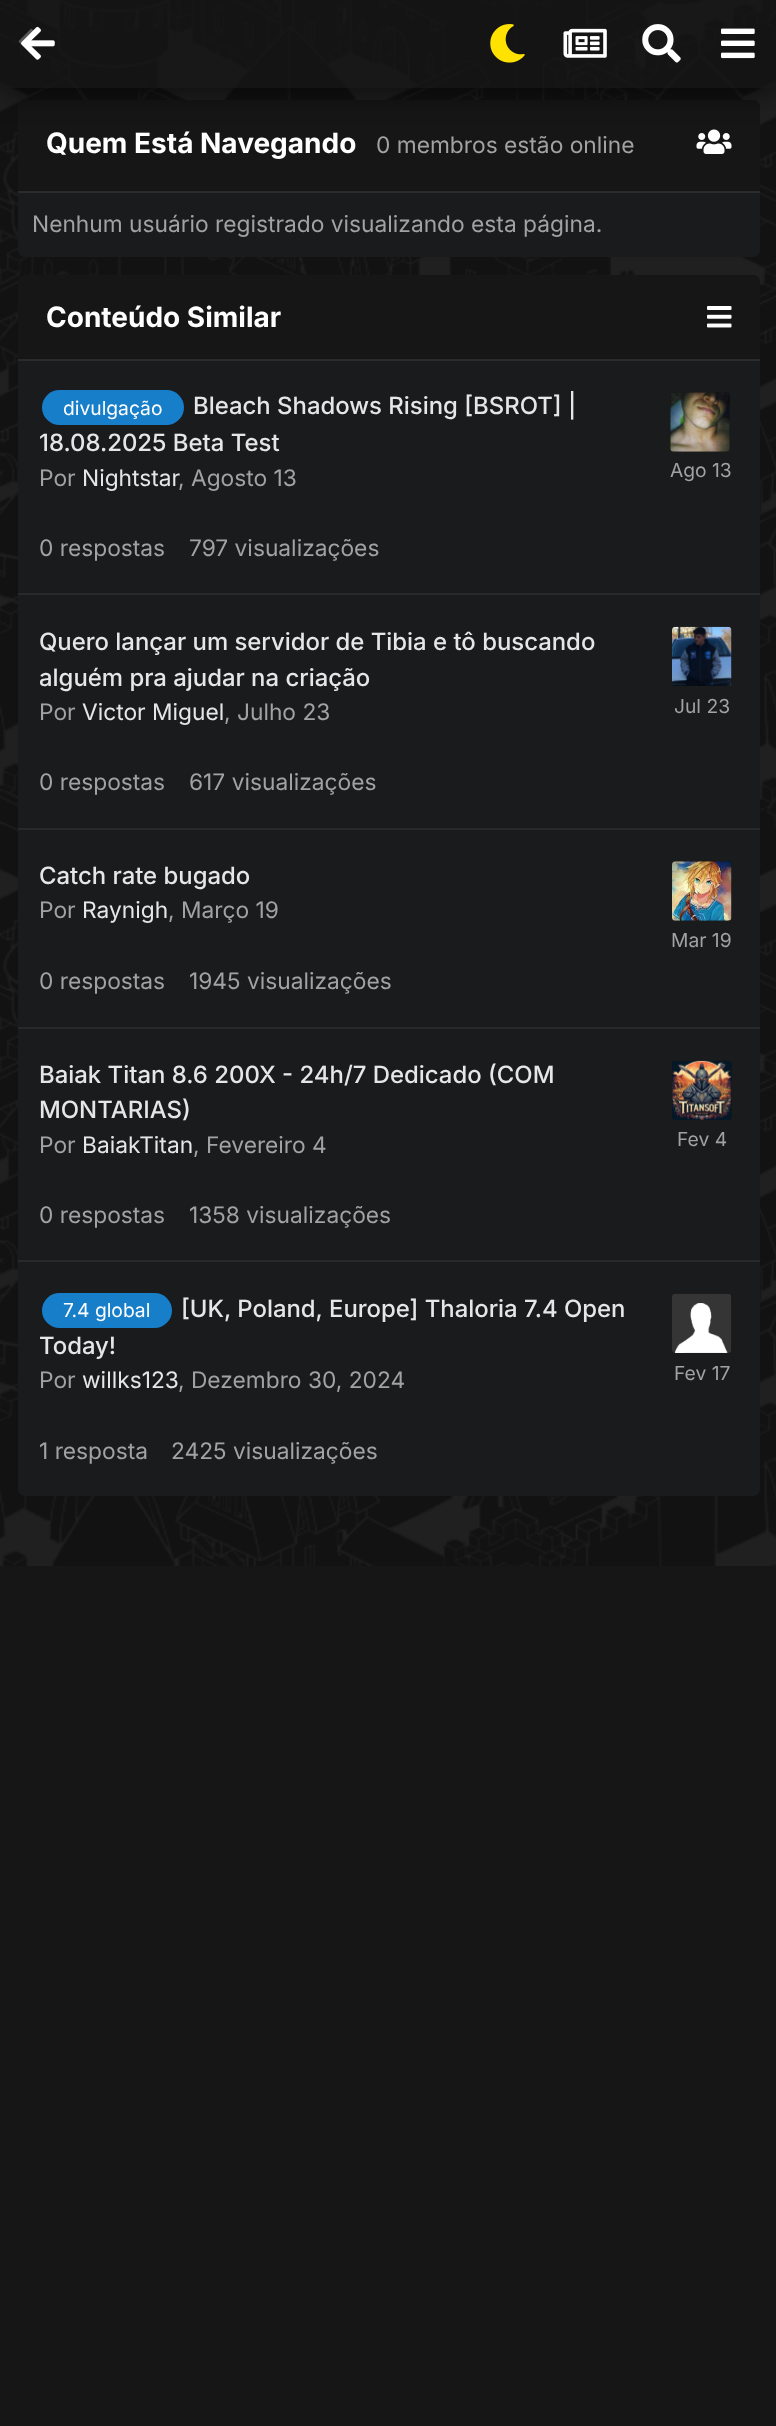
(async () => {
    const canvas = document.querySelector("canvas");
    canvas.width = 776;
    canvas.height = 2426;
    const context = canvas.getContext("2d");
    context.miterLimit = 4;
    context.fontKerning = "normal";
    function write(s, x, y, font, color) {
        context.font = font;
        context.fillStyle = color;
        context.fillText(s, x, y);
    }
    function block(x, y, w, h, color) {
        context.fillStyle = color;
        context.fillRect(x, y, w, h);
    }
    function card(x, y, w, h, r, color) {
        context.fillStyle = color;
        context.beginPath();
        context.roundRect(x, y, w, h, r);
        context.fill();
    }
    async function photo(src, x, y, w, h) {
        const img = new Image();
        img.src = src;
        await img.decode();
        context.drawImage(img, x, y, w, h);
    }

    block(0, 0, 776, 2426, "rgb(255, 255, 255)");
    await photo("media/1.png", 0, 0, 776, 1566);
    await photo("media/7.png", 18, 28, 16, 26);
    card(18, 100, 742, 157, 7, "rgb(25, 27, 29)");
    context.fillStyle = "rgb(22, 22, 22)";
    context.beginPath();
    context.roundRect(18, 100, 742, 93, [7, 7, 0, 0]);
    context.fill();
    await photo("media/8.png", 696, 129, 36, 25);
    context.save();
    context.beginPath();
    context.moveTo(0, 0);
    context.lineTo(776, 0);
    context.lineTo(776, 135);
    context.lineTo(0, 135);
    context.closePath();
    context.moveTo(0, 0);
    context.lineTo(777, 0);
    context.lineTo(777, 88);
    context.lineTo(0, 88);
    context.closePath();
    context.clip("evenodd");
    context.fillStyle = "rgba(0, 0, 0, 0.53)";
    context.filter = "blur(13px)";
    context.beginPath();
    context.rect(0, 7, 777, 88);
    context.fill();
    context.filter = "none";
    context.restore();
    block(0, 0, 776, 88, "rgba(22, 22, 22, 0.7)");
    await photo("media/2.png", 21, 26, 34, 34);
    await photo("media/3.png", 490, 24, 35, 39);
    await photo("media/4.png", 563, 28, 44, 30);
    await photo("media/5.png", 642, 24, 39, 39);
    await photo("media/6.png", 721, 28, 34, 31);
    block(18, 191, 742, 2, "rgb(43, 43, 43)");
    write("Quem Está Navegando", 46, 153, "bold 28px Inter", "rgb(255, 255, 255)");
    write("0 membros estão online", 376, 153, "22.75px Inter", "rgb(162, 162, 162)");
    write("Nenhum usuário registrado visualizando esta página.", 32, 232, "22.75px Inter", "rgb(162, 162, 162)");
    card(18, 275, 742, 1221, 7, "rgb(25, 27, 29)");
    context.fillStyle = "rgb(22, 22, 22)";
    context.beginPath();
    context.roundRect(18, 275, 742, 86, [7, 7, 0, 0]);
    context.fill();
    block(18, 359, 742, 2, "rgb(43, 43, 43)");
    write("Conteúdo Similar", 46, 327, "bold 28px Inter", "rgb(255, 255, 255)");
    await photo("media/9.png", 707, 306, 25, 22);
    block(18, 593, 742, 2, "rgb(39, 41, 42)");
    card(42, 390, 142, 35, 17.5, "rgb(23, 126, 201)");
    write("divulgação", 63, 415, "19.25px Inter", "rgb(255, 255, 255)");
    write("Bleach Shadows Rising [BSROT] |", 193, 414, "500 23.9px Inter", "rgb(230, 230, 230)");
    write("18.08.2025 Beta Test", 39, 451, "500 23.9px Inter", "rgb(230, 230, 230)");
    write("Por", 39, 486, "22.75px Inter", "rgb(162, 162, 162)");
    write("Nightstar", 82, 486, "22.75px Inter", "rgb(230, 230, 230)");
    write(", Agosto 13", 178, 486, "22.75px Inter", "rgb(162, 162, 162)");
    card(670, 392, 60, 60, 4, "rgb(22, 22, 22)");
    await photo("media/10.png", 670, 392, 60, 60);
    write("Ago 13", 670, 477, "19.25px Inter", "rgb(162, 162, 162)");
    write("0 respostas", 39, 556, "22.75px Inter", "rgb(162, 162, 162)");
    write("797 visualizações", 189, 556, "22.75px Inter", "rgb(162, 162, 162)");
    block(18, 828, 742, 2, "rgb(39, 41, 42)");
    write("Quero lançar um servidor de Tibia e tô buscando", 39, 650, "500 23.9px Inter", "rgb(230, 230, 230)");
    write("alguém pra ajudar na criação", 39, 686, "500 23.9px Inter", "rgb(230, 230, 230)");
    write("Por", 39, 720, "22.75px Inter", "rgb(162, 162, 162)");
    write("Victor Miguel", 82, 720, "22.75px Inter", "rgb(230, 230, 230)");
    write(", Julho 23", 224, 720, "22.75px Inter", "rgb(162, 162, 162)");
    card(672, 627, 60, 59, 4, "rgb(22, 22, 22)");
    await photo("media/11.png", 672, 626, 60, 60);
    write("Jul 23", 674, 713, "19.25px Inter", "rgb(162, 162, 162)");
    write("0 respostas", 39, 790, "22.75px Inter", "rgb(162, 162, 162)");
    write("617 visualizações", 189, 790, "22.75px Inter", "rgb(162, 162, 162)");
    block(18, 1027, 742, 2, "rgb(39, 41, 42)");
    write("Catch rate bugado", 39, 884, "500 23.9px Inter", "rgb(230, 230, 230)");
    write("Por", 39, 918, "22.75px Inter", "rgb(162, 162, 162)");
    write("Raynigh", 82, 918, "22.75px Inter", "rgb(230, 230, 230)");
    write(", Março 19", 168, 918, "22.75px Inter", "rgb(162, 162, 162)");
    card(672, 861, 60, 60, 4, "rgb(22, 22, 22)");
    await photo("media/12.png", 672, 861, 60, 60);
    write("Mar 19", 671, 947, "19.25px Inter", "rgb(162, 162, 162)");
    write("0 respostas", 39, 989, "22.75px Inter", "rgb(162, 162, 162)");
    write("1945 visualizações", 189, 989, "22.75px Inter", "rgb(162, 162, 162)");
    block(18, 1260, 742, 2, "rgb(39, 41, 42)");
    write("Baiak Titan 8.6 200X - 24h/7 Dedicado (COM", 39, 1083, "500 23.9px Inter", "rgb(230, 230, 230)");
    write("MONTARIAS)", 39, 1118, "500 23.9px Inter", "rgb(230, 230, 230)");
    write("Por", 39, 1153, "22.75px Inter", "rgb(162, 162, 162)");
    write("BaiakTitan", 82, 1153, "22.75px Inter", "rgb(230, 230, 230)");
    write(", Fevereiro 4", 193, 1153, "22.75px Inter", "rgb(162, 162, 162)");
    card(672, 1061, 60, 59, 4, "rgb(22, 22, 22)");
    await photo("media/13.png", 672, 1060, 60, 60);
    write("Fev 4", 677, 1146, "19.25px Inter", "rgb(162, 162, 162)");
    write("0 respostas", 39, 1223, "22.75px Inter", "rgb(162, 162, 162)");
    write("1358 visualizações", 189, 1223, "22.75px Inter", "rgb(162, 162, 162)");
    card(42, 1293, 130, 35, 17.5, "rgb(23, 126, 201)");
    write("7.4 global", 63, 1317, "19.25px Inter", "rgb(255, 255, 255)");
    write("[UK, Poland, Europe] Thaloria 7.4 Open", 181, 1317, "500 23.9px Inter", "rgb(230, 230, 230)");
    write("Today!", 39, 1354, "500 23.9px Inter", "rgb(230, 230, 230)");
    write("Por", 39, 1388, "22.75px Inter", "rgb(162, 162, 162)");
    write("willks123", 82, 1388, "22.75px Inter", "rgb(230, 230, 230)");
    write(", Dezembro 30, 2024", 178, 1388, "22.75px Inter", "rgb(162, 162, 162)");
    card(672, 1293, 60, 60, 4, "rgb(22, 22, 22)");
    await photo("media/14.png", 672, 1293, 60, 60);
    write("Fev 17", 674, 1380, "19.25px Inter", "rgb(162, 162, 162)");
    write("1 resposta", 39, 1459, "22.75px Inter", "rgb(162, 162, 162)");
    write("2425 visualizações", 171, 1459, "22.75px Inter", "rgb(162, 162, 162)");
    block(0, 1566, 776, 860, "rgb(22, 22, 22)");
})();
